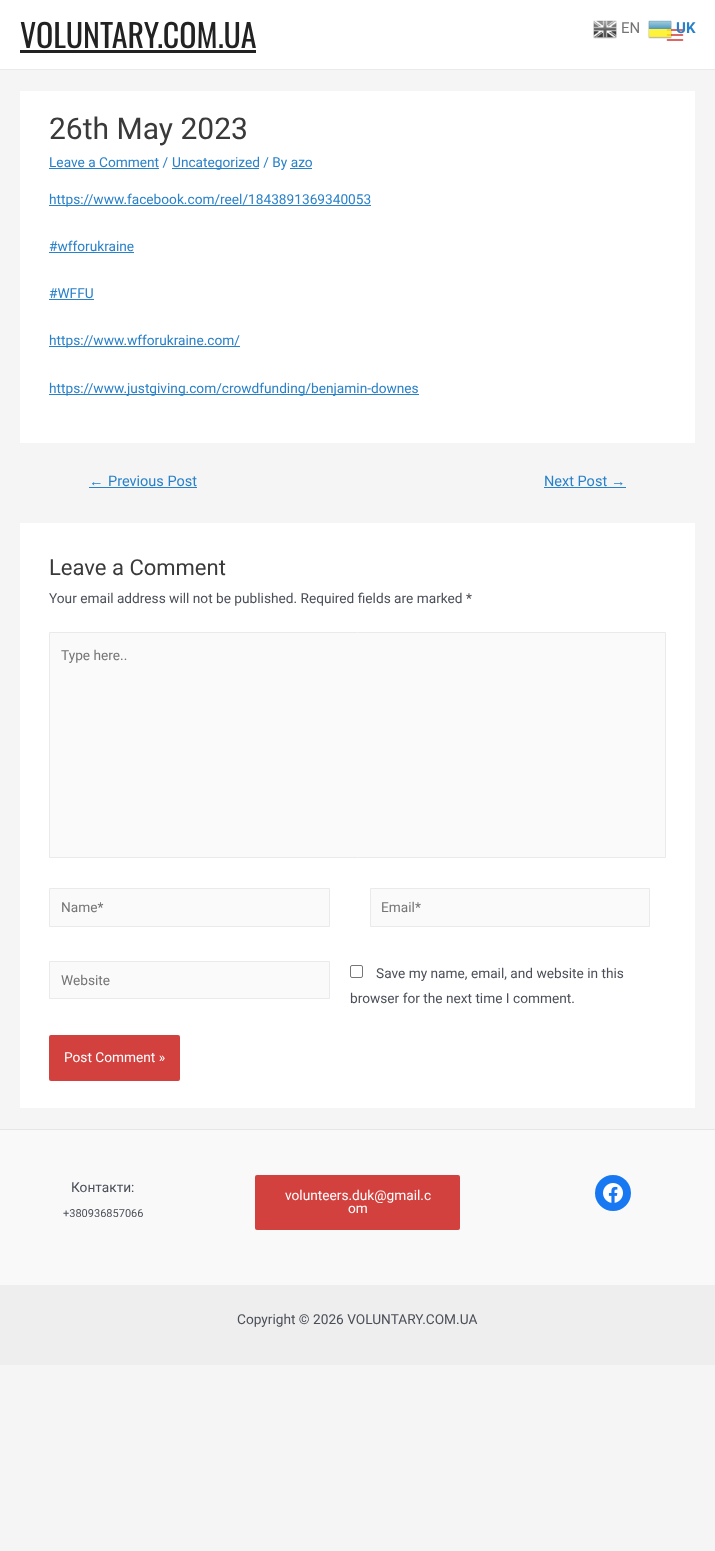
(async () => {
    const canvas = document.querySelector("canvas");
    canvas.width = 715;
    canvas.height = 1551;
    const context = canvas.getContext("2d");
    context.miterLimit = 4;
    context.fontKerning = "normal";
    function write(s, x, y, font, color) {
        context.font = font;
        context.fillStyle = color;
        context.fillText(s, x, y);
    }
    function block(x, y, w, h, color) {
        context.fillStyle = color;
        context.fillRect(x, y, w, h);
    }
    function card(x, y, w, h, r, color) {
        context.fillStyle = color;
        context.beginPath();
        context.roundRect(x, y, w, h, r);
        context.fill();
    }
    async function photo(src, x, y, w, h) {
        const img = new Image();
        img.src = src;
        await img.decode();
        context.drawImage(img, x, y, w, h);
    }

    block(0, 0, 715, 1551, "rgb(245, 245, 245)");
    block(0, 0, 715, 69, "rgb(255, 255, 255)");
    block(0, 69, 715, 1, "rgb(234, 234, 234)");
    write("VOLUNTARY.COM.UA", 20, 48, "32px Oswald", "rgb(34, 34, 34)");
    block(20, 50, 236, 3, "rgb(34, 34, 34)");
    await photo("media/1.png", 666, 29, 18, 12);
    block(20, 91, 675, 352, "rgb(255, 255, 255)");
    write("26th May 2023", 49, 139, "30px Roboto", "rgb(58, 58, 58)");
    write("Leave a Comment /", 49, 167, "13.7px Roboto", "rgb(41, 129, 201)");
    block(49, 168, 110, 1, "rgb(41, 129, 201)");
    block(172, 168, 87, 1, "rgb(41, 129, 201)");
    write("Uncategorized / By azo", 172, 167, "13.7px Roboto", "rgb(41, 129, 201)");
    block(290, 168, 22, 1, "rgb(41, 129, 201)");
    block(49, 205, 322, 1, "rgb(41, 129, 201)");
    write("https://www.facebook.com/reel/1843891369340053", 49, 204, "13.7px Roboto", "rgb(41, 129, 201)");
    write("#wfforukraine", 49, 251, "13.7px Roboto", "rgb(41, 129, 201)");
    block(49, 252, 85, 1, "rgb(41, 129, 201)");
    write("#WFFU", 49, 298, "13.7px Roboto", "rgb(41, 129, 201)");
    block(49, 299, 45, 1, "rgb(41, 129, 201)");
    block(49, 346, 191, 1, "rgb(41, 129, 201)");
    write("https://www.wfforukraine.com/", 49, 345, "13.7px Roboto", "rgb(41, 129, 201)");
    block(49, 394, 370, 1, "rgb(41, 129, 201)");
    write("https://www.justgiving.com/crowdfunding/benjamin-downes", 49, 393, "13.7px Roboto", "rgb(41, 129, 201)");
    write("←", 89, 486, "14.5px Liberation Sans", "rgb(41, 129, 201)");
    block(89, 487, 108, 1, "rgb(41, 129, 201)");
    write("Previous Post", 108, 486, "14.5px Roboto", "rgb(41, 129, 201)");
    write("Next Post", 544, 486, "14.5px Roboto", "rgb(41, 129, 201)");
    block(544, 487, 82, 1, "rgb(41, 129, 201)");
    write("→", 611, 486, "14.5px Liberation Sans", "rgb(41, 129, 201)");
    block(20, 523, 675, 585, "rgb(255, 255, 255)");
    write("Leave a Comment", 49, 575, "22px Roboto", "rgb(58, 58, 58)");
    write("Your email address will not be published. Required fields are marked *", 49, 603, "13.7px Roboto", "rgb(75, 79, 88)");
    context.fillStyle = "rgb(250, 250, 250)";
    context.beginPath();
    context.rect(49.5, 632.5, 616, 225);
    context.fill();
    context.strokeStyle = "rgb(234, 234, 234)";
    context.stroke();
    write("Type here..", 61, 660, "13.7px Roboto", "rgb(117, 117, 117)");
    context.fillStyle = "rgb(250, 250, 250)";
    context.beginPath();
    context.rect(49.5, 888.5, 280, 38);
    context.fill();
    context.stroke();
    write("Name*", 61, 912, "13.7px Roboto", "rgb(117, 117, 117)");
    context.fillStyle = "rgb(250, 250, 250)";
    context.beginPath();
    context.rect(370.5, 888.5, 279, 38);
    context.fill();
    context.stroke();
    write("Email*", 381, 912, "13.7px Roboto", "rgb(117, 117, 117)");
    context.fillStyle = "rgb(250, 250, 250)";
    context.beginPath();
    context.rect(49.5, 961.5, 280, 37);
    context.fill();
    context.stroke();
    write("Website", 61, 985, "13.7px Roboto", "rgb(117, 117, 117)");
    context.beginPath();
    context.roundRect(350.5, 965.5, 12, 12, 1.5);
    context.strokeStyle = "rgb(118, 118, 118)";
    context.stroke();
    write("Save my name, email, and website in this", 376, 978, "13.7px Roboto", "rgb(75, 79, 88)");
    write("browser for the next time I comment.", 350, 1003, "13.7px Roboto", "rgb(75, 79, 88)");
    card(49, 1035, 131, 46, 2, "rgb(211, 65, 63)");
    write("Post Comment »", 64, 1062, "13.7px Roboto", "rgb(255, 255, 255)");
    block(0, 1130, 715, 155, "rgb(249, 249, 249)");
    block(0, 1129, 715, 1, "rgb(230, 230, 230)");
    write("Контакти:", 71, 1192, "13.7px Roboto", "rgb(75, 79, 88)");
    write("+380936857066", 63, 1217, "11px Roboto", "rgb(75, 79, 88)");
    card(255, 1175, 205, 55, 2, "rgb(211, 65, 63)");
    write("volunteers.duk@gmail.c", 285, 1200, "13.7px Roboto", "rgb(255, 255, 255)");
    write("om", 348, 1213, "13.7px Roboto", "rgb(255, 255, 255)");
    context.fillStyle = "rgb(23, 120, 242)";
    context.beginPath();
    context.arc(613, 1193, 18, 0, Math.PI * 2);
    context.fill();
    await photo("media/2.png", 603, 1183, 20, 20);
    block(0, 1285, 715, 80, "rgb(238, 238, 238)");
    write("Copyright © 2026 VOLUNTARY.COM.UA", 237, 1324, "13.7px Roboto", "rgb(75, 79, 88)");
    await photo("media/3.png", 593, 20, 24, 19);
    write("EN", 621, 33, "15px Roboto", "rgb(117, 117, 117)");
    await photo("media/4.png", 648, 20, 24, 19);
    write("UK", 676, 33, "bold 15px Roboto", "rgb(41, 129, 201)");
})();
